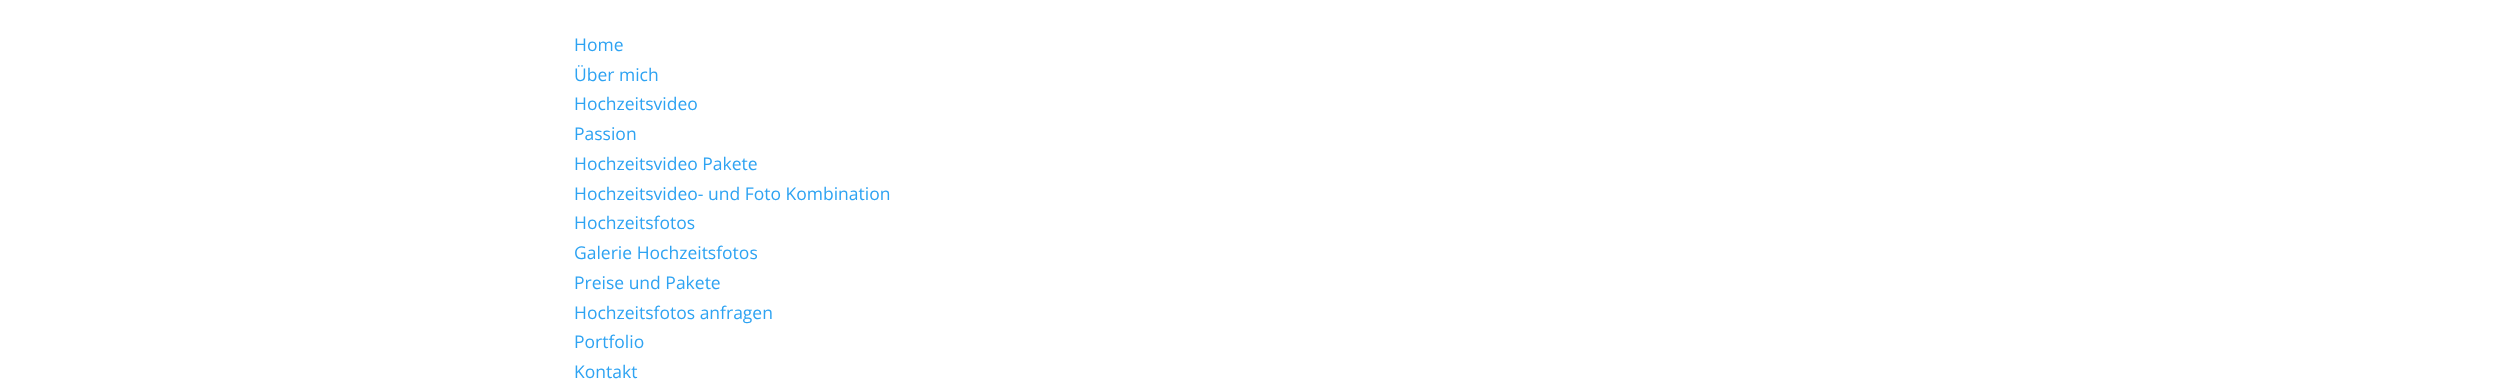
(async () => {
    const canvas = document.querySelector("canvas");
    canvas.width = 2498;
    canvas.height = 389;
    const context = canvas.getContext("2d");
    context.miterLimit = 4;
    context.fontKerning = "normal";
    function write(s, x, y, font, color) {
        context.font = font;
        context.fillStyle = color;
        context.fillText(s, x, y);
    }
    function block(x, y, w, h, color) {
        context.fillStyle = color;
        context.fillRect(x, y, w, h);
    }

    block(0, 0, 2498, 389, "rgb(255, 255, 255)");
    write("Home", 574, 51, "17.5px Open Sans", "rgb(46, 163, 242)");
    write("Über mich", 574, 81, "17.5px Open Sans", "rgb(46, 163, 242)");
    write("Hochzeitsvideo", 574, 110, "17.5px Open Sans", "rgb(46, 163, 242)");
    write("Passion", 574, 140, "17.5px Open Sans", "rgb(46, 163, 242)");
    write("Hochzeitsvideo Pakete", 574, 170, "17.5px Open Sans", "rgb(46, 163, 242)");
    write("Hochzeitsvideo- und Foto Kombination", 574, 200, "17.5px Open Sans", "rgb(46, 163, 242)");
    write("Hochzeitsfotos", 574, 229, "17.5px Open Sans", "rgb(46, 163, 242)");
    write("Galerie Hochzeitsfotos", 574, 259, "17.5px Open Sans", "rgb(46, 163, 242)");
    write("Preise und Pakete", 574, 289, "17.5px Open Sans", "rgb(46, 163, 242)");
    write("Hochzeitsfotos anfragen", 574, 319, "17.5px Open Sans", "rgb(46, 163, 242)");
    write("Portfolio", 574, 348, "17.5px Open Sans", "rgb(46, 163, 242)");
    write("Kontakt", 574, 378, "17.5px Open Sans", "rgb(46, 163, 242)");
})();
